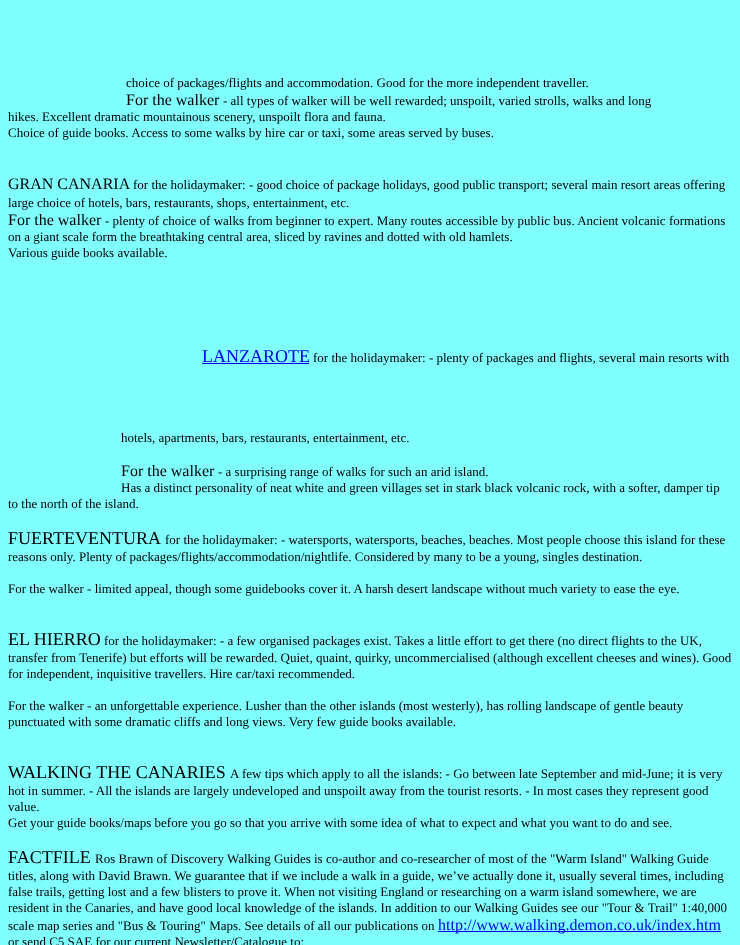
(async () => {
    const canvas = document.querySelector("canvas");
    canvas.width = 740;
    canvas.height = 945;
    const context = canvas.getContext("2d");
    context.miterLimit = 4;
    context.fontKerning = "normal";
    function write(s, x, y, font, color) {
        context.font = font;
        context.fillStyle = color;
        context.fillText(s, x, y);
    }
    function block(x, y, w, h, color) {
        context.fillStyle = color;
        context.fillRect(x, y, w, h);
    }

    block(0, 0, 740, 945, "rgb(128, 255, 255)");
    write("choice of packages/flights and accommodation. Good for the more independent traveller.", 126, 87, "13px Liberation Serif", "rgb(0, 0, 0)");
    write("For the walker", 126, 105, "16px Liberation Serif", "rgb(0, 0, 0)");
    write("- all types of walker will be well rewarded; unspoilt, varied strolls, walks and long", 223, 105, "13px Liberation Serif", "rgb(0, 0, 0)");
    write("hikes. Excellent dramatic mountainous scenery, unspoilt flora and fauna.", 8, 121, "13px Liberation Serif", "rgb(0, 0, 0)");
    write("Choice of guide books. Access to some walks by hire car or taxi, some areas served by buses.", 8, 137, "13px Liberation Serif", "rgb(0, 0, 0)");
    write("GRAN CANARIA", 8, 189, "16px Liberation Serif", "rgb(0, 0, 0)");
    write("for the holidaymaker: - good choice of package holidays, good public transport; several main resort areas offering", 133, 189, "13px Liberation Serif", "rgb(0, 0, 0)");
    write("large choice of hotels, bars, restaurants, shops, entertainment, etc.", 8, 207, "13px Liberation Serif", "rgb(0, 0, 0)");
    write("For the walker", 8, 225, "16px Liberation Serif", "rgb(0, 0, 0)");
    write("- plenty of choice of walks from beginner to expert. Many routes accessible by public bus. Ancient volcanic formations", 105, 225, "13px Liberation Serif", "rgb(0, 0, 0)");
    write("on a giant scale form the breathtaking central area, sliced by ravines and dotted with old hamlets.", 8, 241, "13px Liberation Serif", "rgb(0, 0, 0)");
    write("Various guide books available.", 8, 257, "13px Liberation Serif", "rgb(0, 0, 0)");
    write("LANZAROTE", 202, 362, "18px Liberation Serif", "rgb(0, 0, 238)");
    block(202, 363, 107, 1, "rgb(0, 0, 238)");
    write("for the holidaymaker: - plenty of packages and flights, several main resorts with", 313, 362, "13px Liberation Serif", "rgb(0, 0, 0)");
    write("hotels, apartments, bars, restaurants, entertainment, etc.", 121, 442, "13px Liberation Serif", "rgb(0, 0, 0)");
    write("For the walker", 121, 476, "16px Liberation Serif", "rgb(0, 0, 0)");
    write("- a surprising range of walks for such an arid island.", 218, 476, "13px Liberation Serif", "rgb(0, 0, 0)");
    write("Has a distinct personality of neat white and green villages set in stark black volcanic rock, with a softer, damper tip", 121, 492, "13px Liberation Serif", "rgb(0, 0, 0)");
    write("to the north of the island.", 8, 508, "13px Liberation Serif", "rgb(0, 0, 0)");
    write("FUERTEVENTURA", 8, 544, "18px Liberation Serif", "rgb(0, 0, 0)");
    write("for the holidaymaker: - watersports, watersports, beaches, beaches. Most people choose this island for these", 165, 544, "13px Liberation Serif", "rgb(0, 0, 0)");
    write("reasons only. Plenty of packages/flights/accommodation/nightlife. Considered by many to be a young, singles destination.", 8, 561, "13px Liberation Serif", "rgb(0, 0, 0)");
    write("For the walker - limited appeal, though some guidebooks cover it. A harsh desert landscape without much variety to ease the eye.", 8, 593, "13px Liberation Serif", "rgb(0, 0, 0)");
    write("EL HIERRO", 8, 645, "18px Liberation Serif", "rgb(0, 0, 0)");
    write("for the holidaymaker: - a few organised packages exist. Takes a little effort to get there (no direct flights to the UK,", 104, 645, "13px Liberation Serif", "rgb(0, 0, 0)");
    write("transfer from Tenerife) but efforts will be rewarded. Quiet, quaint, quirky, uncommercialised (although excellent cheeses and wines). Good", 8, 662, "13px Liberation Serif", "rgb(0, 0, 0)");
    write("for independent, inquisitive travellers. Hire car/taxi recommended.", 8, 678, "13px Liberation Serif", "rgb(0, 0, 0)");
    write("For the walker - an unforgettable experience. Lusher than the other islands (most westerly), has rolling landscape of gentle beauty", 8, 710, "13px Liberation Serif", "rgb(0, 0, 0)");
    write("punctuated with some dramatic cliffs and long views. Very few guide books available.", 8, 726, "13px Liberation Serif", "rgb(0, 0, 0)");
    write("WALKING THE CANARIES", 8, 778, "18px Liberation Serif", "rgb(0, 0, 0)");
    write("A few tips which apply to all the islands: - Go between late September and mid-June; it is very", 230, 778, "13px Liberation Serif", "rgb(0, 0, 0)");
    write("hot in summer. - All the islands are largely undeveloped and unspoilt away from the tourist resorts. - In most cases they represent good", 8, 795, "13px Liberation Serif", "rgb(0, 0, 0)");
    write("value.", 8, 811, "13px Liberation Serif", "rgb(0, 0, 0)");
    write("Get your guide books/maps before you go so that you arrive with some idea of what to expect and what you want to do and see.", 8, 827, "13px Liberation Serif", "rgb(0, 0, 0)");
    write("FACTFILE", 8, 863, "18px Liberation Serif", "rgb(0, 0, 0)");
    write("Ros Brawn of Discovery Walking Guides is co-author and co-researcher of most of the \"Warm Island\" Walking Guide", 95, 863, "13px Liberation Serif", "rgb(0, 0, 0)");
    write("titles, along with David Brawn. We guarantee that if we include a walk in a guide, we’ve actually done it, usually several times, including", 8, 880, "13px Liberation Serif", "rgb(0, 0, 0)");
    write("false trails, getting lost and a few blisters to prove it. When not visiting England or researching on a warm island somewhere, we are", 8, 896, "13px Liberation Serif", "rgb(0, 0, 0)");
    write("resident in the Canaries, and have good local knowledge of the islands. In addition to our Walking Guides see our \"Tour & Trail\" 1:40,000", 8, 912, "13px Liberation Serif", "rgb(0, 0, 0)");
    write("scale map series and \"Bus & Touring\" Maps. See details of all our publications on", 8, 930, "13px Liberation Serif", "rgb(0, 0, 0)");
    block(438, 931, 283, 1, "rgb(0, 0, 238)");
    write("http://www.walking.demon.co.uk/index.htm", 438, 930, "16px Liberation Serif", "rgb(0, 0, 238)");
    write("or send C5 SAE for our current Newsletter/Catalogue to:", 8, 946, "13px Liberation Serif", "rgb(0, 0, 0)");
})();
